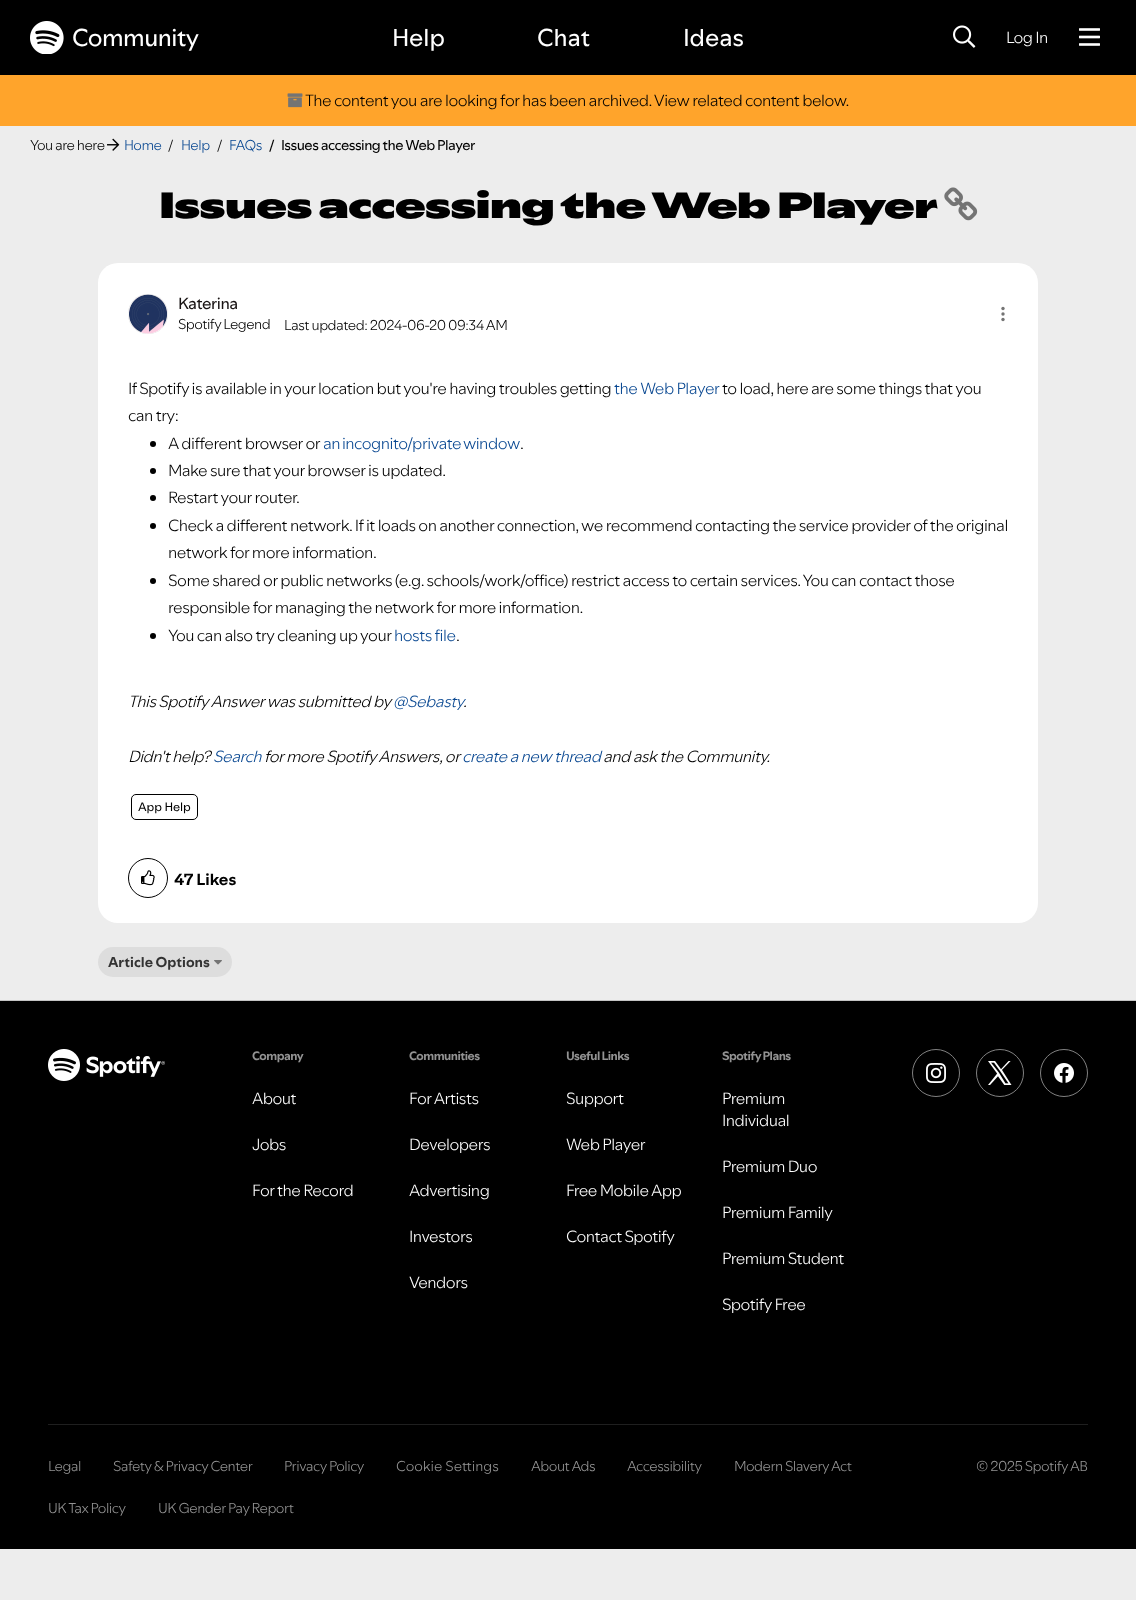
(async () => {
    const canvas = document.querySelector("canvas");
    canvas.width = 1136;
    canvas.height = 1600;
    const context = canvas.getContext("2d");
    context.miterLimit = 4;
    context.fontKerning = "normal";
    function write(s, x, y, font, color) {
        context.font = font;
        context.fillStyle = color;
        context.fillText(s, x, y);
    }
    function block(x, y, w, h, color) {
        context.fillStyle = color;
        context.fillRect(x, y, w, h);
    }
    function card(x, y, w, h, r, color) {
        context.fillStyle = color;
        context.beginPath();
        context.roundRect(x, y, w, h, r);
        context.fill();
    }
    async function photo(src, x, y, w, h) {
        const img = new Image();
        img.src = src;
        await img.decode();
        context.drawImage(img, x, y, w, h);
    }

    block(0, 0, 1136, 1600, "rgb(237, 237, 237)");
    block(0, 0, 1136, 75, "rgb(0, 0, 0)");
    await photo("media/1.png", 30, 21, 34, 33);
    context.letterSpacing = "-0.5px";
    write("Community", 72, 46, "24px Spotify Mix", "rgb(255, 255, 255)");
    context.letterSpacing = "0px";
    write("Help", 392, 46, "24px Spotify Mix", "rgb(255, 255, 255)");
    write("Chat", 537, 46, "24px Spotify Mix", "rgb(255, 255, 255)");
    write("Ideas", 683, 46, "24px Spotify Mix", "rgb(255, 255, 255)");
    await photo("media/2.png", 953, 25, 23, 23);
    context.letterSpacing = "-0.5px";
    write("Log In", 1006, 43, "300 16px Spotify Mix", "rgb(255, 255, 255)");
    await photo("media/3.png", 1079, 28, 21, 18);
    block(0, 75, 1136, 51, "rgb(255, 164, 43)");
    await photo("media/4.png", 287, 93, 16, 15);
    write("The content you are looking for has been archived. View related content below.", 305, 106, "300 16px Spotify Mix", "rgb(0, 0, 0)");
    write("You are here", 30, 150, "300 14px Spotify Mix", "rgb(0, 0, 0)");
    await photo("media/5.png", 107, 138, 13, 13);
    write("Home", 124, 150, "300 14px Spotify Mix", "rgb(8, 71, 145)");
    write("/", 168, 150, "300 14px Spotify Mix", "rgb(0, 0, 0)");
    write("Help", 181, 150, "300 14px Spotify Mix", "rgb(8, 71, 145)");
    write("/", 217, 150, "300 14px Spotify Mix", "rgb(0, 0, 0)");
    write("FAQs", 229, 150, "300 14px Spotify Mix", "rgb(8, 71, 145)");
    write("/", 269, 150, "14px Spotify Mix", "rgb(0, 0, 0)");
    write("Issues accessing the Web Player", 281, 150, "14px Spotify Mix", "rgb(0, 0, 0)");
    write("Issues accessing the Web Player", 159, 218, "900 36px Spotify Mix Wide", "rgb(0, 0, 0)");
    await photo("media/6.png", 944, 187, 34, 34);
    context.fillStyle = "rgb(255, 255, 255)";
    context.beginPath();
    context.roundRect(98, 263, 940, 102, [20, 20, 0, 0]);
    context.fill();
    context.fillStyle = "rgb(196, 196, 196)";
    context.filter = "blur(0.5px)";
    context.beginPath();
    context.roundRect(128, 294, 40, 40, 20);
    context.fill();
    context.filter = "none";
    await photo("media/7.png", 128, 294, 40, 40);
    write("Katerina", 178, 309, "16px Spotify Mix", "rgb(25, 20, 20)");
    write("Spotify Legend", 178, 329, "300 14px Spotify Mix", "rgb(0, 0, 0)");
    write("Last updated: 2024-06-20", 284, 330, "300 14px Spotify Mix", "rgb(0, 0, 0)");
    write("09:34 AM", 448, 330, "300 14px Spotify Mix", "rgb(0, 0, 0)");
    context.fillStyle = "rgb(116, 116, 116)";
    context.beginPath();
    context.arc(1003, 308.5, 1.7, 0, Math.PI * 2);
    context.fill();
    context.beginPath();
    context.arc(1003, 314, 1.7, 0, Math.PI * 2);
    context.fill();
    context.beginPath();
    context.arc(1003, 319.5, 1.7, 0, Math.PI * 2);
    context.fill();
    block(98, 365, 940, 468, "rgb(255, 255, 255)");
    write("If Spotify is available in your location but you're having troubles getting", 128, 394, "300 16px Spotify Mix", "rgb(0, 0, 0)");
    write("the Web Player", 614, 394, "300 16px Spotify Mix", "rgb(8, 71, 145)");
    write("to load, here are some things that you", 722, 394, "300 16px Spotify Mix", "rgb(0, 0, 0)");
    write("can try:", 128, 421, "300 16px Spotify Mix", "rgb(0, 0, 0)");
    context.beginPath();
    context.arc(153, 444, 3, 0, Math.PI * 2);
    context.fill();
    write("A different browser or", 168, 449, "300 16px Spotify Mix", "rgb(0, 0, 0)");
    context.wordSpacing = "-1px";
    write("an incognito/private window", 323, 449, "300 16px Spotify Mix", "rgb(8, 71, 145)");
    context.wordSpacing = "0px";
    write(".", 520, 449, "300 16px Spotify Mix", "rgb(0, 0, 0)");
    context.beginPath();
    context.arc(153, 471, 3, 0, Math.PI * 2);
    context.fill();
    write("Make sure that your browser is updated.", 168, 476, "300 16px Spotify Mix", "rgb(0, 0, 0)");
    context.beginPath();
    context.arc(153, 498, 3, 0, Math.PI * 2);
    context.fill();
    write("Restart your router.", 168, 503, "300 16px Spotify Mix", "rgb(0, 0, 0)");
    context.beginPath();
    context.arc(153, 526, 3, 0, Math.PI * 2);
    context.fill();
    write("Check a different network. If it loads on another connection, we recommend contacting the service provider of the original", 168, 531, "300 16px Spotify Mix", "rgb(0, 0, 0)");
    write("network for more information.", 168, 558, "300 16px Spotify Mix", "rgb(0, 0, 0)");
    context.beginPath();
    context.arc(153, 581, 3, 0, Math.PI * 2);
    context.fill();
    write("Some shared or public networks (e.g. schools/work/office) restrict access to certain services. You can contact those", 168, 586, "300 16px Spotify Mix", "rgb(0, 0, 0)");
    write("responsible for managing the network for more information.", 168, 613, "300 16px Spotify Mix", "rgb(0, 0, 0)");
    context.beginPath();
    context.arc(153, 636, 3, 0, Math.PI * 2);
    context.fill();
    write("You can also try cleaning up your", 168, 641, "300 16px Spotify Mix", "rgb(0, 0, 0)");
    write("hosts file", 394, 641, "300 16px Spotify Mix", "rgb(8, 71, 145)");
    write(".", 456, 641, "300 16px Spotify Mix", "rgb(0, 0, 0)");
    write("This Spotify Answer was submitted by", 128, 707, "italic 300 16px Spotify Mix", "rgb(0, 0, 0)");
    write("@Sebasty", 393, 707, "italic 300 16px Spotify Mix", "rgb(8, 71, 145)");
    write(".", 463, 707, "italic 300 16px Spotify Mix", "rgb(0, 0, 0)");
    write("Didn't help?", 128, 762, "italic 300 16px Spotify Mix", "rgb(0, 0, 0)");
    write("Search", 213, 762, "italic 300 16px Spotify Mix", "rgb(8, 71, 145)");
    write("for more Spotify Answers, or", 264, 762, "italic 300 16px Spotify Mix", "rgb(0, 0, 0)");
    write("create a new thread", 462, 762, "italic 300 16px Spotify Mix", "rgb(8, 71, 145)");
    write("and ask the Community.", 603, 762, "italic 300 16px Spotify Mix", "rgb(0, 0, 0)");
    context.beginPath();
    context.roundRect(131.5, 794.5, 66, 25, 4.5);
    context.strokeStyle = "rgb(0, 0, 0)";
    context.stroke();
    context.letterSpacing = "0px";
    write("App Help", 138, 811, "12px Spotify Mix", "rgb(0, 0, 0)");
    context.fillStyle = "rgb(255, 255, 255)";
    context.beginPath();
    context.roundRect(98, 833, 940, 90, [0, 0, 20, 20]);
    context.fill();
    context.beginPath();
    context.arc(148, 878, 19.5, 0, Math.PI * 2);
    context.stroke();
    await photo("media/8.png", 141, 870, 14, 16);
    write("47 Likes", 174, 885, "bold 16px Spotify Mix", "rgb(0, 0, 0)");
    card(98, 947, 134, 30, 15, "rgb(221, 221, 221)");
    write("Article Options", 108, 967, "bold 14px Spotify Mix", "rgb(51, 51, 51)");
    await photo("media/9.png", 214, 960, 8, 5);
    block(0, 1000, 1136, 1, "rgb(196, 196, 196)");
    block(0, 1001, 1136, 548, "rgb(0, 0, 0)");
    await photo("media/10.png", 48, 1049, 117, 32);
    context.letterSpacing = "-0.5px";
    write("Company", 252, 1060, "bold 12px Spotify Mix", "rgb(147, 147, 147)");
    write("About", 252, 1104, "300 16px Spotify Mix", "rgb(255, 255, 255)");
    write("Jobs", 252, 1150, "300 16px Spotify Mix", "rgb(255, 255, 255)");
    write("For the Record", 252, 1196, "300 16px Spotify Mix", "rgb(255, 255, 255)");
    write("Communities", 409, 1060, "bold 12px Spotify Mix", "rgb(147, 147, 147)");
    write("For Artists", 409, 1104, "300 16px Spotify Mix", "rgb(255, 255, 255)");
    write("Developers", 409, 1150, "300 16px Spotify Mix", "rgb(255, 255, 255)");
    write("Advertising", 409, 1196, "300 16px Spotify Mix", "rgb(255, 255, 255)");
    write("Investors", 409, 1242, "300 16px Spotify Mix", "rgb(255, 255, 255)");
    write("Vendors", 409, 1288, "300 16px Spotify Mix", "rgb(255, 255, 255)");
    write("Useful Links", 566, 1060, "bold 12px Spotify Mix", "rgb(147, 147, 147)");
    write("Support", 566, 1104, "300 16px Spotify Mix", "rgb(255, 255, 255)");
    write("Web Player", 566, 1150, "300 16px Spotify Mix", "rgb(255, 255, 255)");
    write("Free Mobile App", 566, 1196, "300 16px Spotify Mix", "rgb(255, 255, 255)");
    write("Contact Spotify", 566, 1242, "300 16px Spotify Mix", "rgb(255, 255, 255)");
    write("Spotify Plans", 722, 1060, "bold 12px Spotify Mix", "rgb(147, 147, 147)");
    write("Premium", 722, 1104, "300 16px Spotify Mix", "rgb(255, 255, 255)");
    write("Individual", 722, 1126, "300 16px Spotify Mix", "rgb(255, 255, 255)");
    write("Premium Duo", 722, 1172, "300 16px Spotify Mix", "rgb(255, 255, 255)");
    write("Premium Family", 722, 1218, "300 16px Spotify Mix", "rgb(255, 255, 255)");
    write("Premium Student", 722, 1264, "300 16px Spotify Mix", "rgb(255, 255, 255)");
    write("Spotify Free", 722, 1310, "300 16px Spotify Mix", "rgb(255, 255, 255)");
    context.beginPath();
    context.arc(936, 1073, 23.5, 0, Math.PI * 2);
    context.strokeStyle = "rgb(129, 129, 129)";
    context.stroke();
    await photo("media/11.png", 926, 1063, 20, 20);
    context.beginPath();
    context.arc(1000, 1073, 23.5, 0, Math.PI * 2);
    context.stroke();
    await photo("media/12.png", 988, 1061, 24, 24);
    context.beginPath();
    context.arc(1064, 1073, 23.5, 0, Math.PI * 2);
    context.stroke();
    await photo("media/13.png", 1054, 1063, 20, 20);
    block(48, 1424, 1040, 1, "rgb(31, 31, 31)");
    write("Legal", 48, 1471, "300 14px Spotify Mix", "rgb(147, 147, 147)");
    write("Safety & Privacy Center", 113, 1471, "300 14px Spotify Mix", "rgb(147, 147, 147)");
    write("Privacy Policy", 284, 1471, "300 14px Spotify Mix", "rgb(147, 147, 147)");
    context.letterSpacing = "0px";
    write("Cookie Settings", 396, 1471, "300 14px Spotify Mix", "rgb(147, 147, 147)");
    context.letterSpacing = "-0.5px";
    write("About Ads", 531, 1471, "300 14px Spotify Mix", "rgb(147, 147, 147)");
    write("Accessibility", 627, 1471, "300 14px Spotify Mix", "rgb(147, 147, 147)");
    write("Modern Slavery Act", 734, 1471, "300 14px Spotify Mix", "rgb(147, 147, 147)");
    write("UK Tax Policy", 48, 1513, "300 14px Spotify Mix", "rgb(147, 147, 147)");
    write("UK Gender Pay Report", 158, 1513, "300 14px Spotify Mix", "rgb(147, 147, 147)");
    write("© 2025 Spotify AB", 976, 1471, "300 14px Spotify Mix", "rgb(147, 147, 147)");
})();
